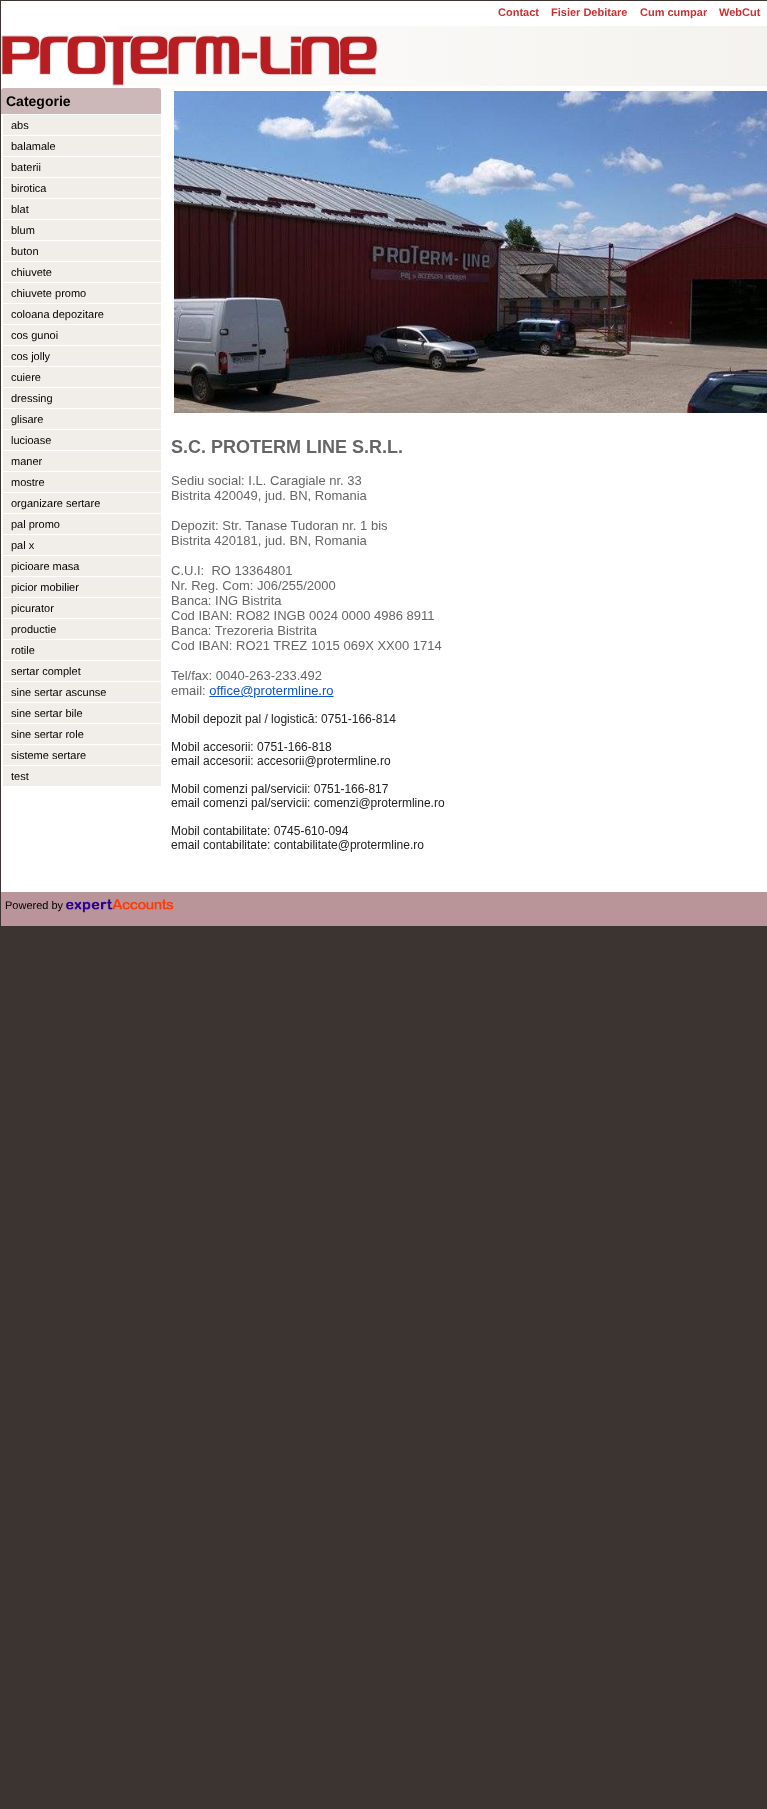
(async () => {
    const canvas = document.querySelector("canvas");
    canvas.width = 767;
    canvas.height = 1809;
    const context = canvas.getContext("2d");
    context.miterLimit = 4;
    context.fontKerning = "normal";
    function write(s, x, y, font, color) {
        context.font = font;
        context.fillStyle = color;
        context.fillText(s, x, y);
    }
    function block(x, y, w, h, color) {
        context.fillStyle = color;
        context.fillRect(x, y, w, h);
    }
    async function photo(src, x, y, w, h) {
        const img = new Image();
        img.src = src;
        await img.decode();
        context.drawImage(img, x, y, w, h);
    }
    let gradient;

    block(0, 0, 767, 1809, "rgb(60, 52, 48)");
    block(1, 1, 766, 891, "rgb(255, 255, 255)");
    write("Contact", 498, 16, "bold 11px Liberation Sans", "rgb(201, 49, 51)");
    write("Fisier Debitare", 551, 16, "bold 11px Liberation Sans", "rgb(201, 49, 51)");
    write("Cum cumpar", 640, 16, "bold 11px Liberation Sans", "rgb(201, 49, 51)");
    write("WebCut", 719, 16, "bold 11px Liberation Sans", "rgb(201, 49, 51)");
    gradient = context.createLinearGradient(1, 56, 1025, 56);
    gradient.addColorStop(0, "rgb(255, 255, 255)");
    gradient.addColorStop(1, "rgb(241, 238, 233)");
    context.fillStyle = gradient;
    context.fillRect(117, 26, 650, 60);
    await photo("media/1.png", 1, 35, 377, 51);
    context.fillStyle = "rgb(204, 184, 184)";
    context.beginPath();
    context.roundRect(1, 88, 160, 26, [3, 3, 0, 0]);
    context.fill();
    write("Categorie", 6, 106, "bold 14px Liberation Sans", "rgb(0, 0, 0)");
    block(3, 115, 158, 20, "rgb(241, 238, 233)");
    write("abs", 11, 129, "11px Liberation Sans", "rgb(0, 0, 0)");
    block(3, 136, 158, 20, "rgb(241, 238, 233)");
    write("balamale", 11, 150, "11px Liberation Sans", "rgb(0, 0, 0)");
    block(3, 157, 158, 20, "rgb(241, 238, 233)");
    write("baterii", 11, 171, "11px Liberation Sans", "rgb(0, 0, 0)");
    block(3, 178, 158, 20, "rgb(241, 238, 233)");
    write("birotica", 11, 192, "11px Liberation Sans", "rgb(0, 0, 0)");
    block(3, 199, 158, 20, "rgb(241, 238, 233)");
    write("blat", 11, 213, "11px Liberation Sans", "rgb(0, 0, 0)");
    block(3, 220, 158, 20, "rgb(241, 238, 233)");
    write("blum", 11, 234, "11px Liberation Sans", "rgb(0, 0, 0)");
    block(3, 241, 158, 20, "rgb(241, 238, 233)");
    write("buton", 11, 255, "11px Liberation Sans", "rgb(0, 0, 0)");
    block(3, 262, 158, 20, "rgb(241, 238, 233)");
    write("chiuvete", 11, 276, "11px Liberation Sans", "rgb(0, 0, 0)");
    block(3, 283, 158, 20, "rgb(241, 238, 233)");
    write("chiuvete promo", 11, 297, "11px Liberation Sans", "rgb(0, 0, 0)");
    block(3, 304, 158, 20, "rgb(241, 238, 233)");
    write("coloana depozitare", 11, 318, "11px Liberation Sans", "rgb(0, 0, 0)");
    block(3, 325, 158, 20, "rgb(241, 238, 233)");
    write("cos gunoi", 11, 339, "11px Liberation Sans", "rgb(0, 0, 0)");
    block(3, 346, 158, 20, "rgb(241, 238, 233)");
    write("cos jolly", 11, 360, "11px Liberation Sans", "rgb(0, 0, 0)");
    block(3, 367, 158, 20, "rgb(241, 238, 233)");
    write("cuiere", 11, 381, "11px Liberation Sans", "rgb(0, 0, 0)");
    block(3, 388, 158, 20, "rgb(241, 238, 233)");
    write("dressing", 11, 402, "11px Liberation Sans", "rgb(0, 0, 0)");
    block(3, 409, 158, 20, "rgb(241, 238, 233)");
    write("glisare", 11, 423, "11px Liberation Sans", "rgb(0, 0, 0)");
    block(3, 430, 158, 20, "rgb(241, 238, 233)");
    write("lucioase", 11, 444, "11px Liberation Sans", "rgb(0, 0, 0)");
    block(3, 451, 158, 20, "rgb(241, 238, 233)");
    write("maner", 11, 465, "11px Liberation Sans", "rgb(0, 0, 0)");
    block(3, 472, 158, 20, "rgb(241, 238, 233)");
    write("mostre", 11, 486, "11px Liberation Sans", "rgb(0, 0, 0)");
    block(3, 493, 158, 20, "rgb(241, 238, 233)");
    write("organizare sertare", 11, 507, "11px Liberation Sans", "rgb(0, 0, 0)");
    block(3, 514, 158, 20, "rgb(241, 238, 233)");
    write("pal promo", 11, 528, "11px Liberation Sans", "rgb(0, 0, 0)");
    block(3, 535, 158, 20, "rgb(241, 238, 233)");
    write("pal x", 11, 549, "11px Liberation Sans", "rgb(0, 0, 0)");
    block(3, 556, 158, 20, "rgb(241, 238, 233)");
    write("picioare masa", 11, 570, "11px Liberation Sans", "rgb(0, 0, 0)");
    block(3, 577, 158, 20, "rgb(241, 238, 233)");
    write("picior mobilier", 11, 591, "11px Liberation Sans", "rgb(0, 0, 0)");
    block(3, 598, 158, 20, "rgb(241, 238, 233)");
    write("picurator", 11, 612, "11px Liberation Sans", "rgb(0, 0, 0)");
    block(3, 619, 158, 20, "rgb(241, 238, 233)");
    write("productie", 11, 633, "11px Liberation Sans", "rgb(0, 0, 0)");
    block(3, 640, 158, 20, "rgb(241, 238, 233)");
    write("rotile", 11, 654, "11px Liberation Sans", "rgb(0, 0, 0)");
    block(3, 661, 158, 20, "rgb(241, 238, 233)");
    write("sertar complet", 11, 675, "11px Liberation Sans", "rgb(0, 0, 0)");
    block(3, 682, 158, 20, "rgb(241, 238, 233)");
    write("sine sertar ascunse", 11, 696, "11px Liberation Sans", "rgb(0, 0, 0)");
    block(3, 703, 158, 20, "rgb(241, 238, 233)");
    write("sine sertar bile", 11, 717, "11px Liberation Sans", "rgb(0, 0, 0)");
    block(3, 724, 158, 20, "rgb(241, 238, 233)");
    write("sine sertar role", 11, 738, "11px Liberation Sans", "rgb(0, 0, 0)");
    block(3, 745, 158, 20, "rgb(241, 238, 233)");
    write("sisteme sertare", 11, 759, "11px Liberation Sans", "rgb(0, 0, 0)");
    block(3, 766, 158, 20, "rgb(241, 238, 233)");
    write("test", 11, 780, "11px Liberation Sans", "rgb(0, 0, 0)");
    await photo("media/2.png", 171, 91, 596, 761);
    block(1, 892, 766, 34, "rgb(185, 148, 152)");
    write("Powered by", 5, 909, "11px Liberation Sans", "rgb(0, 0, 0)");
    await photo("media/3.png", 66, 899, 108, 14);
})();
